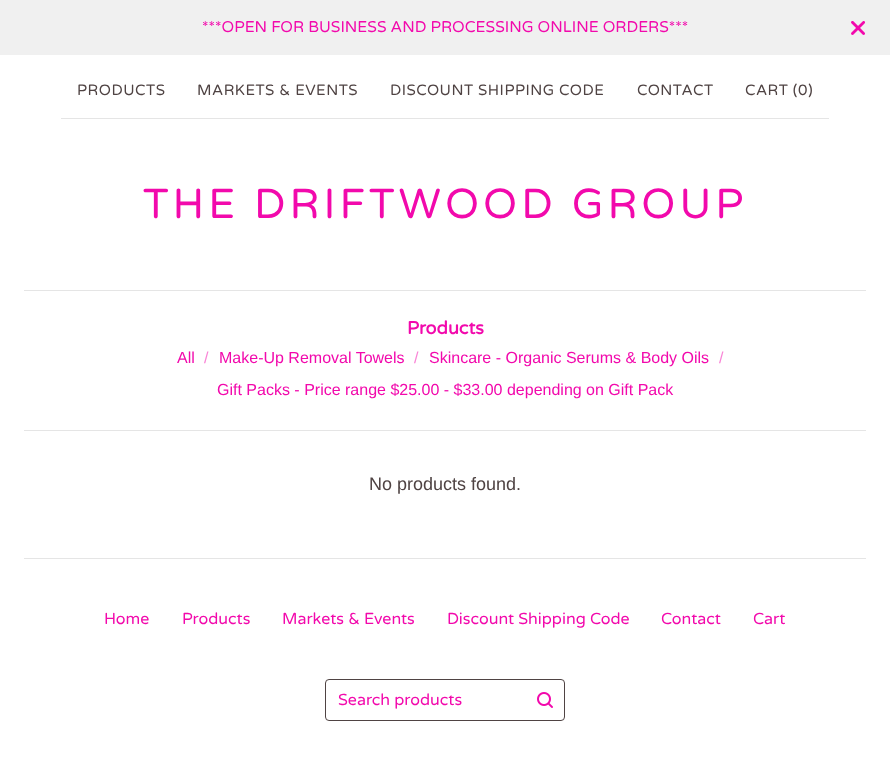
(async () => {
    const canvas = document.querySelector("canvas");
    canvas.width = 890;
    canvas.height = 767;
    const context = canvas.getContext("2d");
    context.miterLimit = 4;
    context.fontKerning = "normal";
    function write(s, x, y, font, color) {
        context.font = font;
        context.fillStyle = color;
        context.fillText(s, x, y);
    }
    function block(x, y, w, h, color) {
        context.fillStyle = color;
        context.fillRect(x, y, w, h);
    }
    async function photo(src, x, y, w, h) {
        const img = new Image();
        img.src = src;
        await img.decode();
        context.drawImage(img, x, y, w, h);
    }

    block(0, 0, 890, 767, "rgb(255, 255, 255)");
    block(0, 0, 890, 55, "rgb(240, 240, 240)");
    write("***OPEN FOR BUSINESS AND PROCESSING ONLINE ORDERS***", 202, 32, "15.6px Varela Round", "rgb(242, 9, 172)");
    await photo("media/1.png", 851, 21, 14, 14);
    block(61, 118, 768, 1, "rgb(229, 229, 229)");
    context.letterSpacing = "0.5px";
    write("PRODUCTS", 77, 95, "15px Varela Round", "rgb(79, 67, 67)");
    write("MARKETS & EVENTS", 197, 95, "15px Varela Round", "rgb(79, 67, 67)");
    write("DISCOUNT SHIPPING CODE", 390, 95, "15px Varela Round", "rgb(79, 67, 67)");
    write("CONTACT", 637, 95, "15px Varela Round", "rgb(79, 67, 67)");
    write("CART (0)", 745, 95, "15px Varela Round", "rgb(79, 67, 67)");
    context.letterSpacing = "4px";
    write("THE DRIFTWOOD GROUP", 143, 218, "42px Varela Round", "rgb(242, 9, 172)");
    block(24, 290, 842, 1, "rgb(229, 229, 229)");
    block(24, 430, 842, 1, "rgb(229, 229, 229)");
    context.letterSpacing = "0px";
    write("Products", 407, 334, "bold 18px Varela Round", "rgb(242, 9, 172)");
    write("All", 177, 363, "16px Liberation Sans", "rgb(242, 9, 172)");
    write("/", 204, 363, "16px Liberation Sans", "rgb(249, 132, 214)");
    write("Make-Up Removal Towels", 219, 363, "16px Liberation Sans", "rgb(242, 9, 172)");
    write("/", 414, 363, "16px Liberation Sans", "rgb(249, 132, 214)");
    write("Skincare - Organic Serums & Body Oils", 429, 363, "16px Liberation Sans", "rgb(242, 9, 172)");
    write("/", 719, 363, "16px Liberation Sans", "rgb(249, 132, 214)");
    write("Gift Packs - Price range $25.00 - $33.00 depending on Gift Pack", 217, 395, "16px Liberation Sans", "rgb(242, 9, 172)");
    write("No products found.", 369, 490, "18px Liberation Sans", "rgb(79, 67, 67)");
    block(24, 558, 842, 1, "rgb(229, 229, 229)");
    write("Home", 104, 624, "16px Varela Round", "rgb(242, 9, 172)");
    write("Products", 182, 624, "16px Varela Round", "rgb(242, 9, 172)");
    write("Markets & Events", 282, 624, "16px Varela Round", "rgb(242, 9, 172)");
    write("Discount Shipping Code", 447, 624, "16px Varela Round", "rgb(242, 9, 172)");
    write("Contact", 661, 624, "16px Varela Round", "rgb(242, 9, 172)");
    write("Cart", 753, 624, "16px Varela Round", "rgb(242, 9, 172)");
    context.beginPath();
    context.roundRect(325.5, 679.5, 239, 41, 3.5);
    context.strokeStyle = "rgb(79, 67, 67)";
    context.stroke();
    write("Search products", 338, 705, "16px Varela Round", "rgb(242, 9, 172)");
    await photo("media/2.png", 537, 692, 16, 16);
})();
